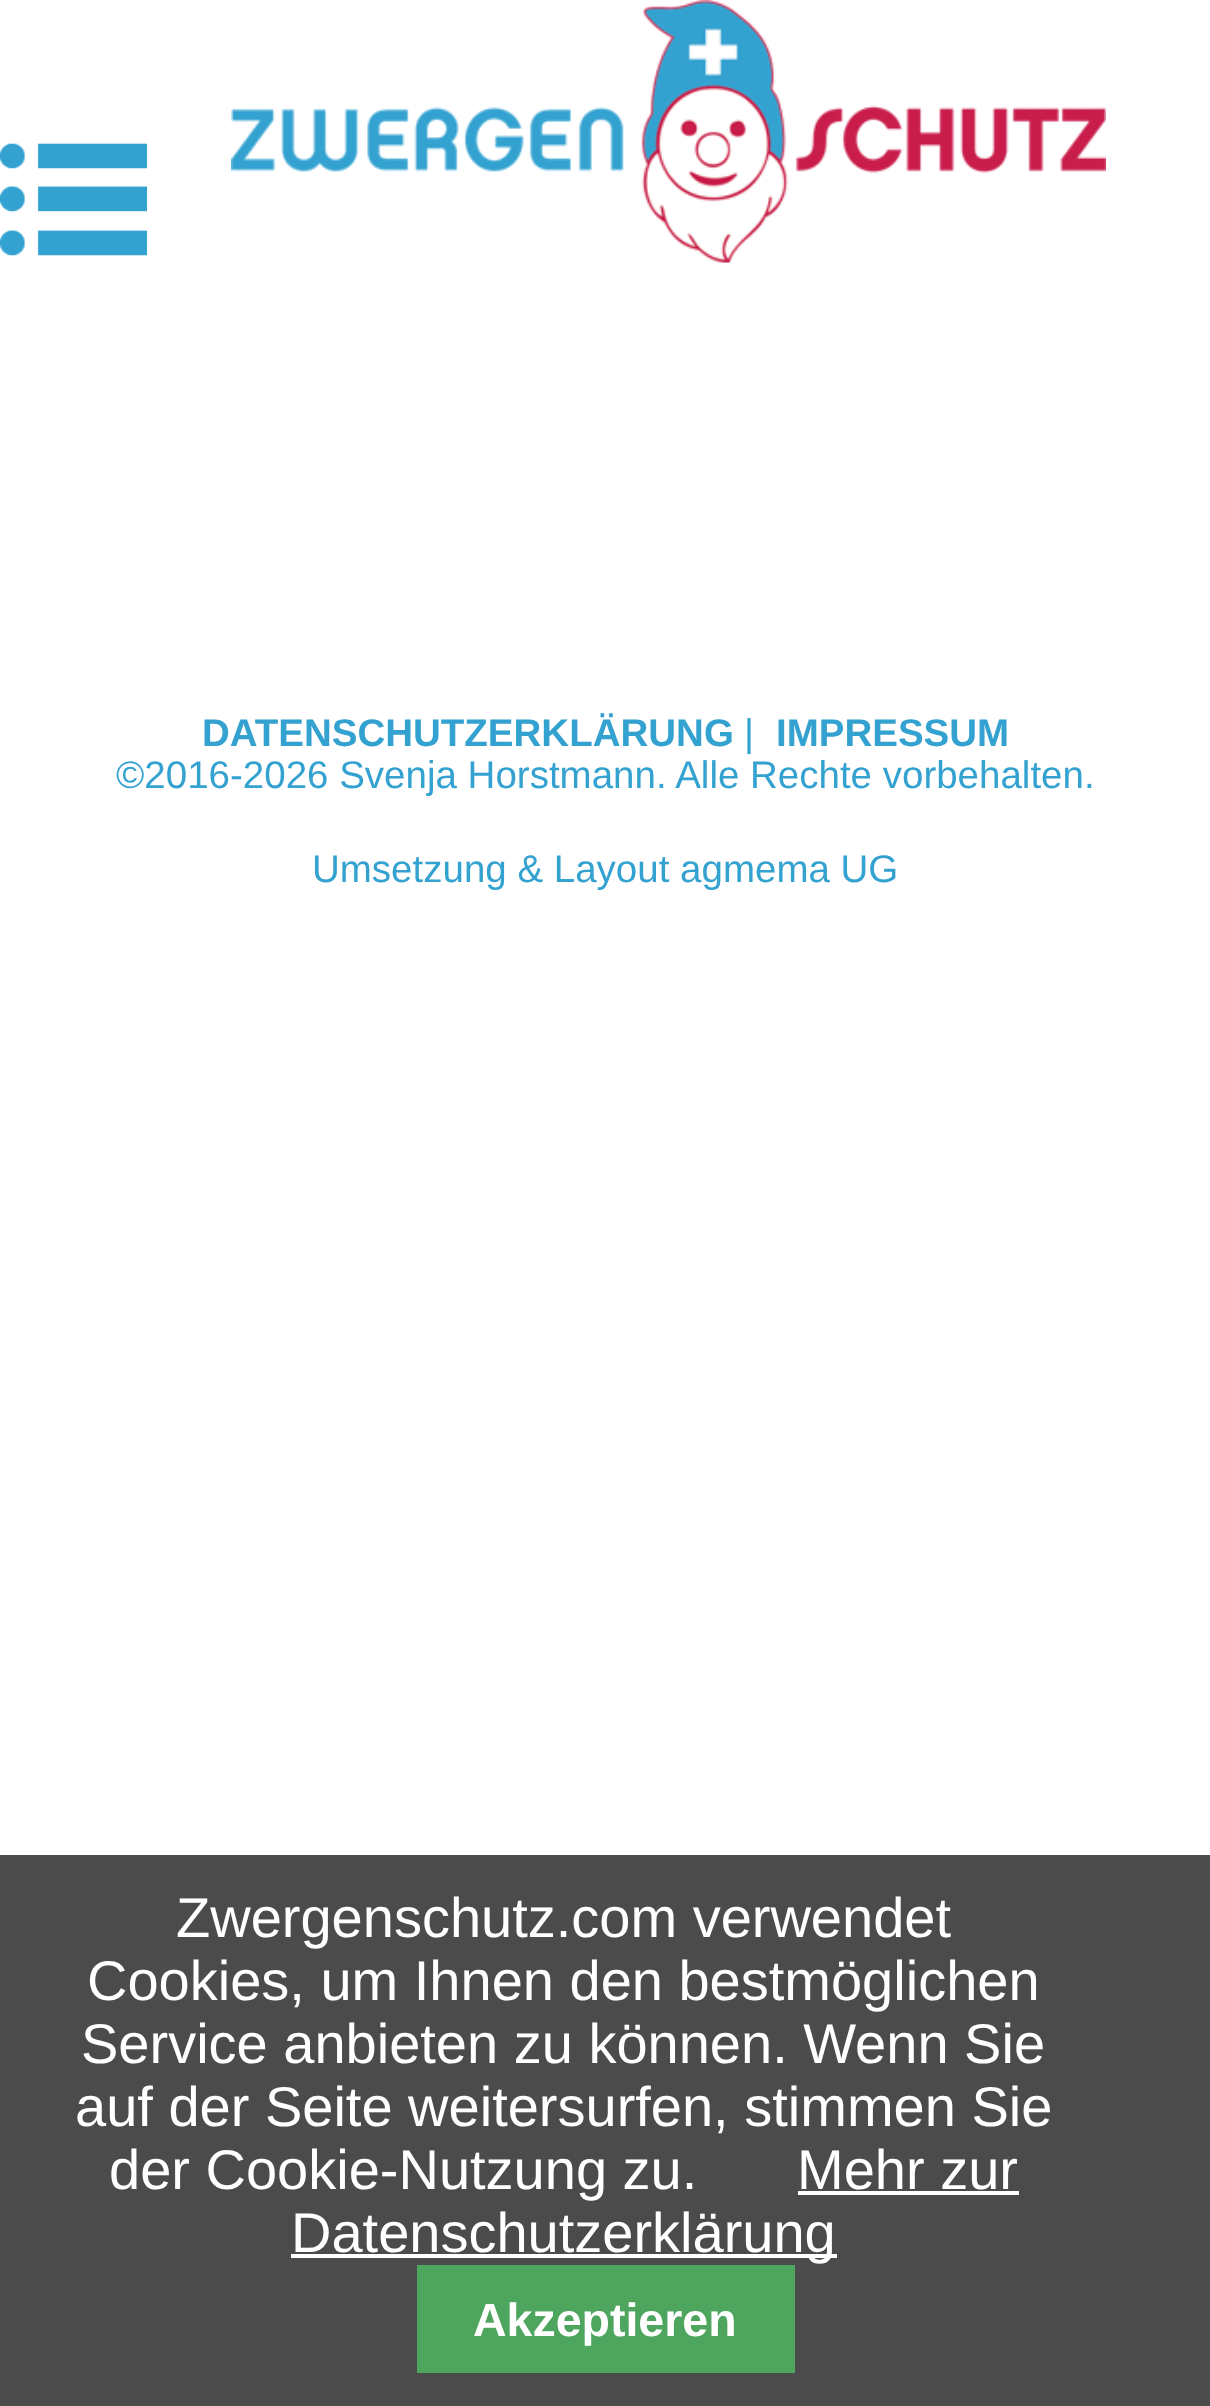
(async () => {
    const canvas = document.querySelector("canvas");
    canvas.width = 1210;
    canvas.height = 2406;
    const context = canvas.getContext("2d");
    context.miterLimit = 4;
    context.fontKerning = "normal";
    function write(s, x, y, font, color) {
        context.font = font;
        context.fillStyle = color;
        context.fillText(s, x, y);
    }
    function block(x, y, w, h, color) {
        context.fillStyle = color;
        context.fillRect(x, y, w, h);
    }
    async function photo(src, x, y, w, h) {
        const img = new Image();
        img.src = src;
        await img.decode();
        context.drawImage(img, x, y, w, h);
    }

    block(0, 0, 1210, 2406, "rgb(255, 255, 255)");
    await photo("media/1.png", 0, 143, 147, 113);
    await photo("media/2.png", 231, 0, 875, 263);
    write("DATENSCHUTZERKLÄRUNG", 202, 746, "bold 38.5px Liberation Sans", "rgb(52, 162, 208)");
    write("|", 744, 746, "38.5px Liberation Sans", "rgb(52, 162, 208)");
    write("IMPRESSUM", 776, 746, "bold 38.5px Liberation Sans", "rgb(52, 162, 208)");
    write("©2016-2026 Svenja Horstmann. Alle Rechte vorbehalten.", 116, 788, "38.5px Liberation Sans", "rgb(52, 162, 208)");
    write("Umsetzung & Layout agmema UG", 312, 882, "38.5px Liberation Sans", "rgb(52, 162, 208)");
    block(0, 1855, 1210, 551, "rgb(75, 75, 75)");
    write("Zwergenschutz.com verwendet", 176, 1937, "56px Liberation Sans", "rgb(255, 255, 255)");
    write("Cookies, um Ihnen den bestmöglichen", 87, 2000, "56px Liberation Sans", "rgb(255, 255, 255)");
    write("Service anbieten zu können. Wenn Sie", 81, 2063, "56px Liberation Sans", "rgb(255, 255, 255)");
    write("auf der Seite weitersurfen, stimmen Sie", 75, 2126, "56px Liberation Sans", "rgb(255, 255, 255)");
    write("der Cookie-Nutzung zu.", 109, 2189, "56px Liberation Sans", "rgb(255, 255, 255)");
    write("Mehr zur", 797, 2189, "56px Liberation Sans", "rgb(255, 255, 255)");
    block(798, 2191, 221, 4, "rgb(255, 255, 255)");
    block(291, 2254, 546, 4, "rgb(255, 255, 255)");
    write("Datenschutzerklärung", 291, 2252, "56px Liberation Sans", "rgb(255, 255, 255)");
    block(417, 2265, 378, 108, "rgb(78, 165, 94)");
    write("Akzeptieren", 473, 2336, "bold 46.5px Liberation Sans", "rgb(255, 255, 255)");
})();
